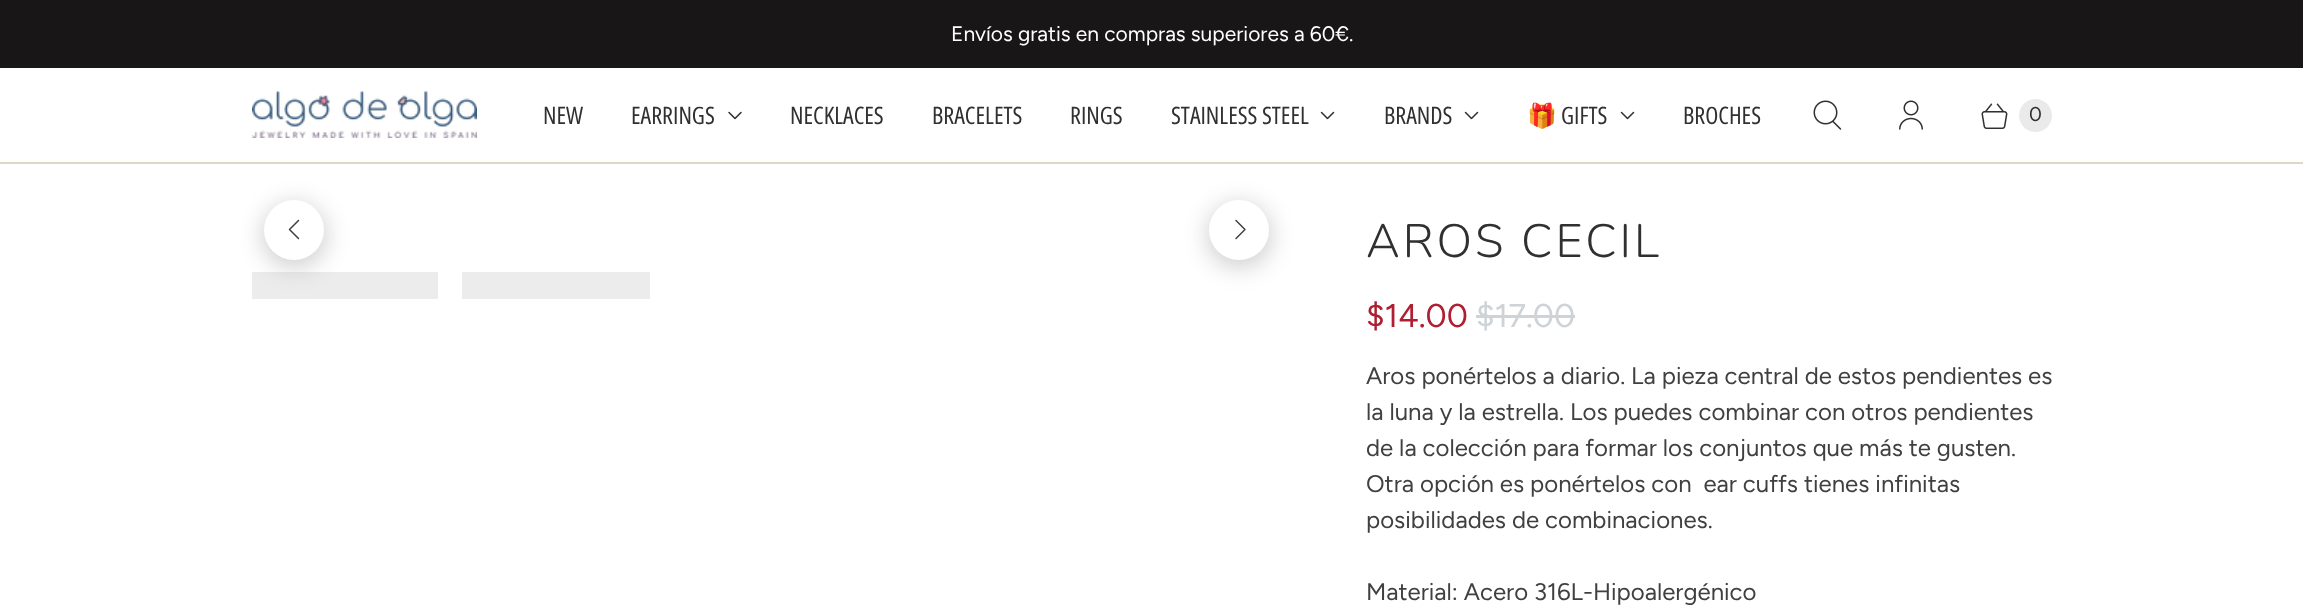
(async () => {
    const canvas = document.querySelector("canvas");
    canvas.width = 2303;
    canvas.height = 614;
    const context = canvas.getContext("2d");
    context.miterLimit = 4;
    context.fontKerning = "normal";
    function write(s, x, y, font, color) {
        context.font = font;
        context.fillStyle = color;
        context.fillText(s, x, y);
    }
    function block(x, y, w, h, color) {
        context.fillStyle = color;
        context.fillRect(x, y, w, h);
    }
    async function photo(src, x, y, w, h) {
        const img = new Image();
        img.src = src;
        await img.decode();
        context.drawImage(img, x, y, w, h);
    }

    block(0, 0, 2303, 614, "rgb(255, 255, 255)");
    block(0, 0, 2303, 68, "rgb(24, 22, 23)");
    write("Envíos gratis en compras superiores a 60€.", 951, 41, "21px Figtree", "rgb(255, 255, 255)");
    block(0, 162, 2303, 2, "rgb(222, 214, 199)");
    await photo("media/1.png", 252, 91, 225, 47);
    write("NEW", 543, 124, "24px Open Sans Condensed", "rgb(48, 48, 48)");
    write("EARRINGS", 631, 124, "24px Open Sans Condensed", "rgb(48, 48, 48)");
    await photo("media/2.png", 728, 111, 14, 9);
    write("NECKLACES", 790, 124, "24px Open Sans Condensed", "rgb(48, 48, 48)");
    write("BRACELETS", 932, 124, "24px Open Sans Condensed", "rgb(48, 48, 48)");
    write("RINGS", 1070, 124, "24px Open Sans Condensed", "rgb(48, 48, 48)");
    write("STAINLESS STEEL", 1171, 124, "24px Open Sans Condensed", "rgb(48, 48, 48)");
    await photo("media/3.png", 1320, 111, 15, 9);
    write("BRANDS", 1384, 124, "24px Open Sans Condensed", "rgb(48, 48, 48)");
    await photo("media/3.png", 1464, 111, 15, 9);
    write("🎁", 1527, 124, "24px Noto Color Emoji", "rgb(48, 48, 48)");
    write("GIFTS", 1561, 124, "24px Open Sans Condensed", "rgb(48, 48, 48)");
    await photo("media/3.png", 1620, 111, 15, 9);
    write("BROCHES", 1683, 124, "24px Open Sans Condensed", "rgb(48, 48, 48)");
    await photo("media/4.png", 1813, 100, 29, 30);
    await photo("media/5.png", 1899, 100, 24, 30);
    await photo("media/6.png", 1981, 103, 27, 26);
    context.fillStyle = "rgb(234, 234, 234)";
    context.beginPath();
    context.arc(2035.5, 115.5, 16.5, 0, Math.PI * 2);
    context.fill();
    write("0", 2029, 121, "20px Figtree", "rgb(48, 48, 48)");
    context.fillStyle = "rgba(0, 0, 0, 0.2)";
    context.filter = "blur(12px)";
    context.beginPath();
    context.roundRect(263, 204, 63, 63, 31.5);
    context.fill();
    context.filter = "none";
    context.fillStyle = "rgb(255, 255, 255)";
    context.beginPath();
    context.arc(294, 230, 30, 0, Math.PI * 2);
    context.fill();
    await photo("media/7.png", 288, 219, 12, 21);
    context.fillStyle = "rgba(0, 0, 0, 0.2)";
    context.filter = "blur(12px)";
    context.beginPath();
    context.roundRect(1208, 204, 63, 63, 31.5);
    context.fill();
    context.filter = "none";
    context.fillStyle = "rgb(255, 255, 255)";
    context.beginPath();
    context.arc(1239, 230, 30, 0, Math.PI * 2);
    context.fill();
    await photo("media/8.png", 1235, 219, 11, 21);
    block(252, 272, 186, 27, "rgba(64, 64, 64, 0.1)");
    block(462, 272, 188, 27, "rgb(236, 236, 236)");
    context.letterSpacing = "3px";
    write("AROS CECIL", 1366, 257, "300 46.75px Nunito", "rgb(48, 48, 48)");
    context.letterSpacing = "0px";
    write("$14.00", 1366, 327, "33px Figtree", "rgb(175, 31, 49)");
    write("$17.00", 1476, 327, "33px Figtree", "rgb(206, 211, 215)");
    block(1476, 315, 99, 3, "rgb(206, 211, 215)");
    write("Aros ponértelos a diario. La pieza central de estos pendientes es", 1366, 384, "24px Figtree", "rgb(64, 64, 64)");
    write("la luna y la estrella. Los puedes combinar con otros pendientes", 1366, 420, "24px Figtree", "rgb(64, 64, 64)");
    write("de la colección para formar los conjuntos que más te gusten.", 1366, 456, "24px Figtree", "rgb(64, 64, 64)");
    write("Otra opción es ponértelos con  ear cuffs tienes infinitas", 1366, 492, "24px Figtree", "rgb(64, 64, 64)");
    write("posibilidades de combinaciones.", 1366, 528, "24px Figtree", "rgb(64, 64, 64)");
    write("Material: Acero 316L-Hipoalergénico", 1366, 600, "24px Figtree", "rgb(64, 64, 64)");
})();
